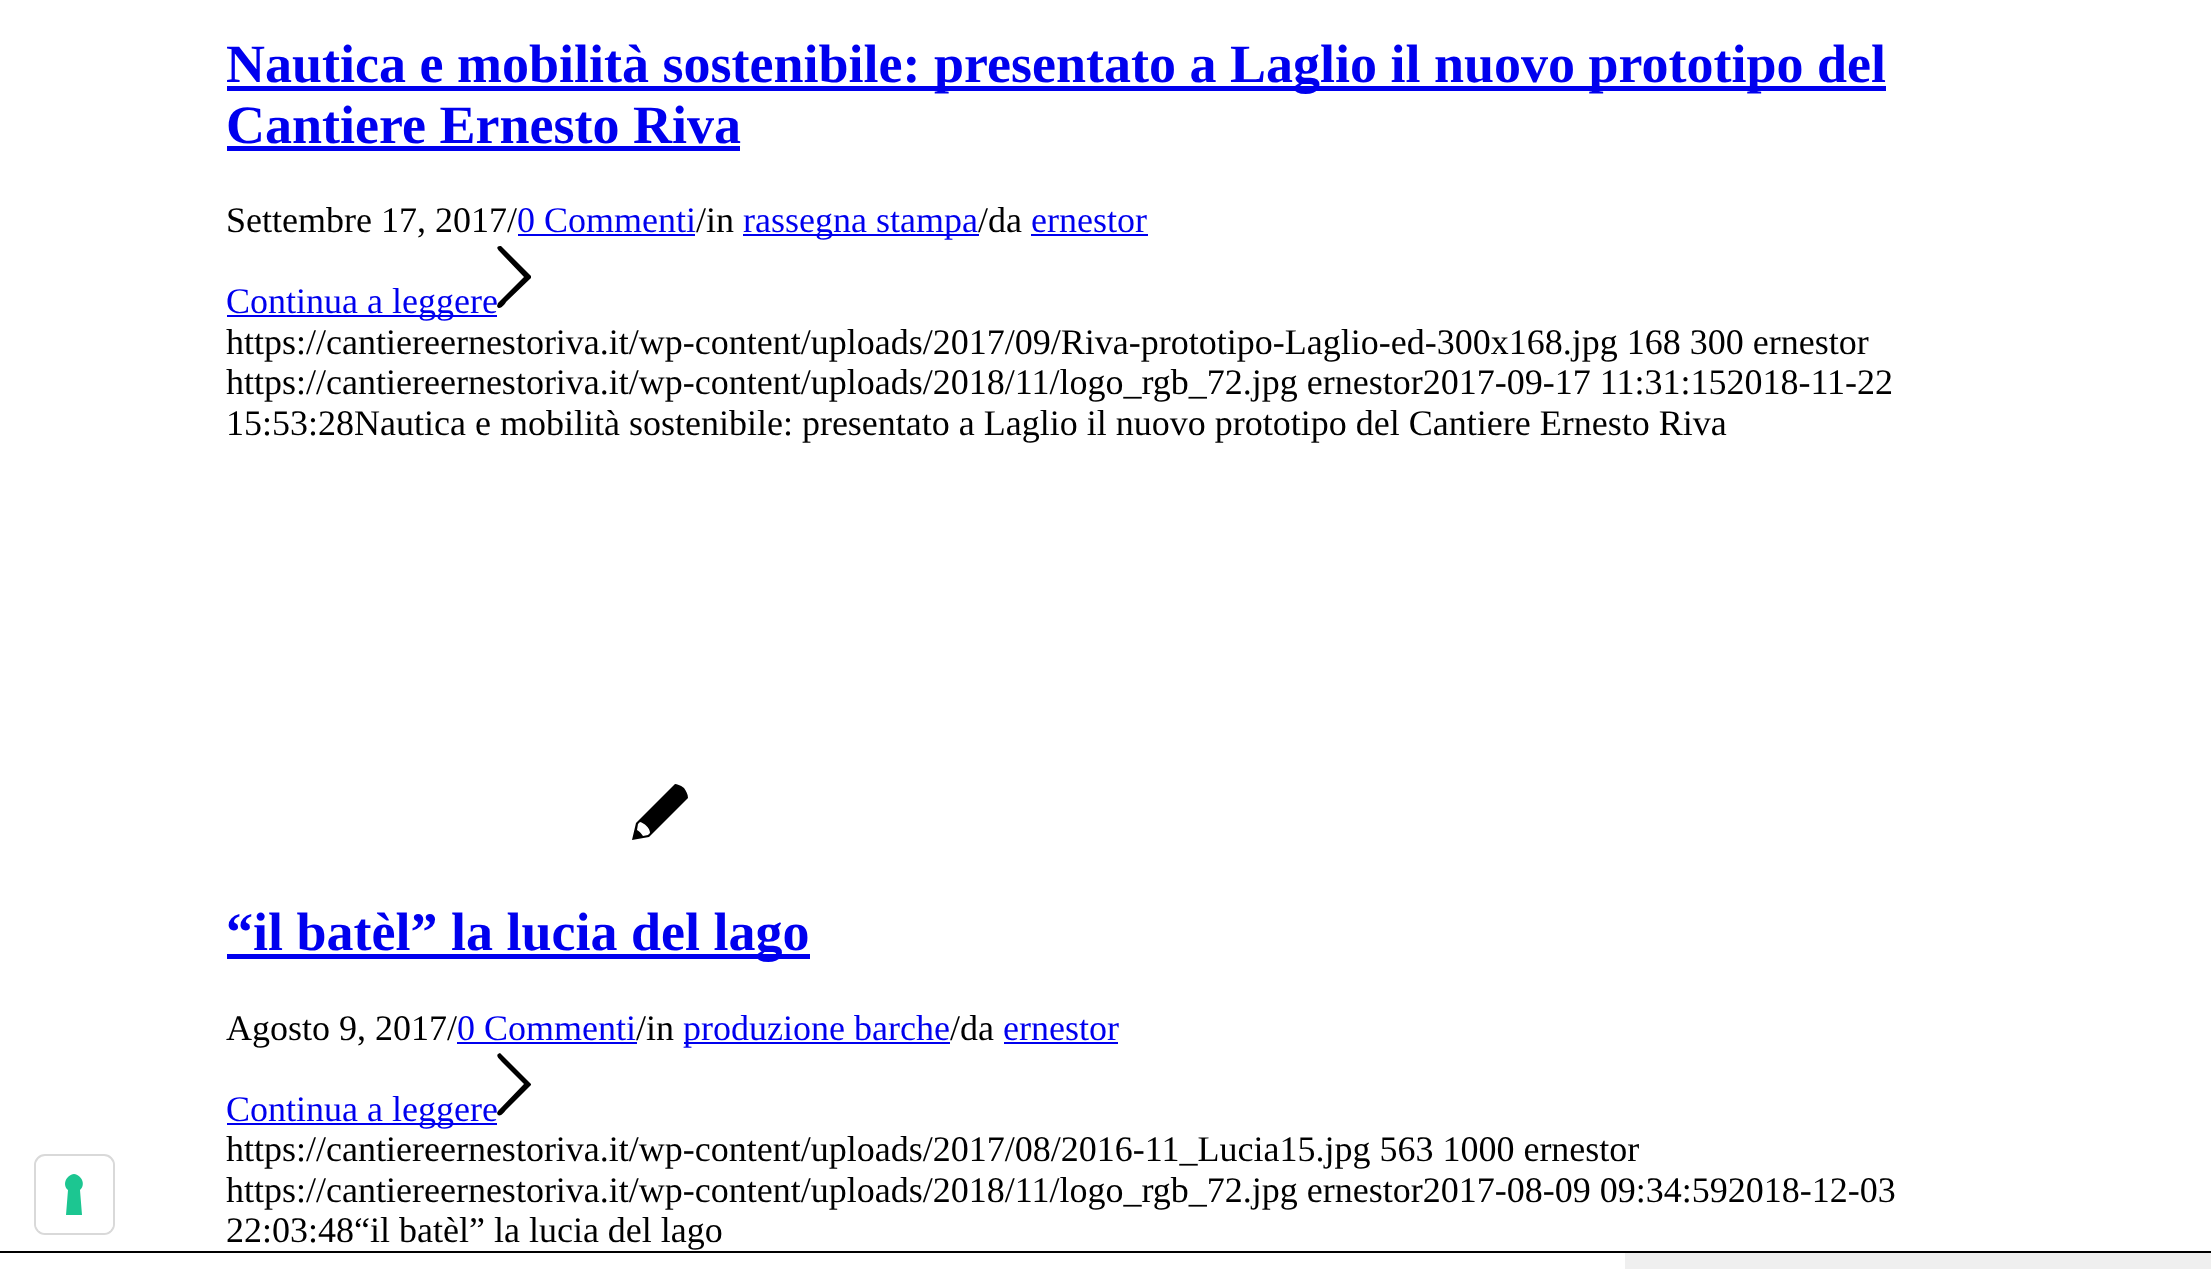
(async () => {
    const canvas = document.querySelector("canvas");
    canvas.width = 2211;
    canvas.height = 1269;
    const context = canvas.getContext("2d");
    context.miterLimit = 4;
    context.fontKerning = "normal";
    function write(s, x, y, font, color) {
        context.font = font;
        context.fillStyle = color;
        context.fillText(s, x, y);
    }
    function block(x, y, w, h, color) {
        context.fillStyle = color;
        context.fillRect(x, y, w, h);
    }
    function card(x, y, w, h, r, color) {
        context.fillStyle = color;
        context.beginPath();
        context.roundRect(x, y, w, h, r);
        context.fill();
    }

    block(0, 0, 2211, 1269, "rgb(255, 255, 255)");
    context.beginPath();
    context.roundRect(35, 1155, 79, 79, 10);
    context.strokeStyle = "rgb(217, 217, 217)";
    context.lineWidth = 2;
    context.stroke();
    card(36, 1157, 77, 76, 9, "rgb(255, 255, 255)");
    context.fillStyle = "rgb(28, 198, 145)";
    context.beginPath();
    context.moveTo(74, 1174);
    context.bezierCurveTo(82, 1175, 86, 1185, 80, 1190);
    context.lineTo(82, 1215);
    context.lineTo(66, 1215);
    context.lineTo(68, 1190);
    context.bezierCurveTo(62, 1185, 66, 1175, 74, 1174);
    context.closePath();
    context.fill("evenodd");
    block(227, 86, 1659, 5, "rgb(0, 0, 238)");
    write("Nautica e mobilità sostenibile: presentato a Laglio il nuovo prototipo del", 226, 82, "bold 54px Liberation Serif", "rgb(0, 0, 238)");
    write("Cantiere Ernesto Riva", 226, 143, "bold 54px Liberation Serif", "rgb(0, 0, 238)");
    block(227, 146, 513, 5, "rgb(0, 0, 238)");
    write("Settembre 17, 2017/", 226, 232, "36px Liberation Serif", "rgb(0, 0, 0)");
    block(518, 234, 177, 2, "rgb(0, 0, 238)");
    write("0 Commenti", 517, 232, "36px Liberation Serif", "rgb(0, 0, 238)");
    write("/in", 696, 232, "36px Liberation Serif", "rgb(0, 0, 0)");
    block(743, 234, 236, 2, "rgb(0, 0, 238)");
    write("rassegna stampa", 743, 232, "36px Liberation Serif", "rgb(0, 0, 238)");
    write("/da", 978, 232, "36px Liberation Serif", "rgb(0, 0, 0)");
    write("ernestor", 1031, 232, "36px Liberation Serif", "rgb(0, 0, 238)");
    block(1031, 234, 117, 2, "rgb(0, 0, 238)");
    block(227, 315, 270, 2, "rgb(0, 0, 238)");
    write("Continua a leggere", 226, 313, "36px Liberation Serif", "rgb(0, 0, 238)");
    context.fillStyle = "rgb(0, 0, 0)";
    context.beginPath();
    context.moveTo(498, 303);
    context.lineTo(524, 277);
    context.lineTo(502, 254);
    context.bezierCurveTo(502, 253, 493, 247, 500, 246);
    context.lineTo(501, 246);
    context.lineTo(531, 276);
    context.lineTo(531, 278);
    context.lineTo(506, 302);
    context.bezierCurveTo(506, 303, 499, 312, 497, 306);
    context.closePath();
    context.fill();
    write("https://cantiereernestoriva.it/wp-content/uploads/2017/09/Riva-prototipo-Laglio-ed-300x168.jpg 168 300 ernestor", 226, 354, "36px Liberation Serif", "rgb(0, 0, 0)");
    write("https://cantiereernestoriva.it/wp-content/uploads/2018/11/logo_rgb_72.jpg ernestor2017-09-17 11:31:152018-11-22", 226, 394, "36px Liberation Serif", "rgb(0, 0, 0)");
    write("15:53:28Nautica e mobilità sostenibile: presentato a Laglio il nuovo prototipo del Cantiere Ernesto Riva", 226, 435, "36px Liberation Serif", "rgb(0, 0, 0)");
    context.beginPath();
    context.moveTo(684, 788);
    context.bezierCurveTo(686, 791, 688, 794, 688, 798);
    context.lineTo(649, 837);
    context.lineTo(632, 840);
    context.lineTo(636, 823);
    context.lineTo(675, 784);
    context.bezierCurveTo(677, 784, 680, 785, 684, 788);
    context.closePath();
    context.moveTo(648, 835);
    context.lineTo(650, 833);
    context.bezierCurveTo(650, 828, 644, 823, 640, 822);
    context.lineTo(638, 824);
    context.lineTo(637, 830);
    context.bezierCurveTo(639, 831, 641, 833, 643, 836);
    context.closePath();
    context.fill();
    block(227, 954, 583, 5, "rgb(0, 0, 238)");
    write("“il batèl” la lucia del lago", 226, 950, "bold 54px Liberation Serif", "rgb(0, 0, 238)");
    write("Agosto 9, 2017/", 226, 1040, "36px Liberation Serif", "rgb(0, 0, 0)");
    block(457, 1042, 180, 2, "rgb(0, 0, 238)");
    write("0 Commenti", 457, 1040, "36px Liberation Serif", "rgb(0, 0, 238)");
    write("/in", 636, 1040, "36px Liberation Serif", "rgb(0, 0, 0)");
    block(684, 1042, 266, 2, "rgb(0, 0, 238)");
    write("produzione barche", 683, 1040, "36px Liberation Serif", "rgb(0, 0, 238)");
    write("/da", 950, 1040, "36px Liberation Serif", "rgb(0, 0, 0)");
    write("ernestor", 1003, 1040, "36px Liberation Serif", "rgb(0, 0, 238)");
    block(1004, 1042, 114, 2, "rgb(0, 0, 238)");
    block(227, 1123, 270, 2, "rgb(0, 0, 238)");
    write("Continua a leggere", 226, 1121, "36px Liberation Serif", "rgb(0, 0, 238)");
    context.fillStyle = "rgb(0, 0, 0)";
    context.beginPath();
    context.moveTo(498, 1111);
    context.lineTo(524, 1084);
    context.lineTo(502, 1062);
    context.bezierCurveTo(502, 1061, 493, 1055, 500, 1053);
    context.lineTo(501, 1054);
    context.lineTo(531, 1084);
    context.lineTo(531, 1085);
    context.lineTo(506, 1110);
    context.bezierCurveTo(506, 1110, 499, 1120, 497, 1113);
    context.closePath();
    context.fill();
    write("https://cantiereernestoriva.it/wp-content/uploads/2017/08/2016-11_Lucia15.jpg 563 1000 ernestor", 226, 1161, "36px Liberation Serif", "rgb(0, 0, 0)");
    write("https://cantiereernestoriva.it/wp-content/uploads/2018/11/logo_rgb_72.jpg ernestor2017-08-09 09:34:592018-12-03", 226, 1202, "36px Liberation Serif", "rgb(0, 0, 0)");
    write("22:03:48“il batèl” la lucia del lago", 226, 1242, "36px Liberation Serif", "rgb(0, 0, 0)");
    block(0, 1251, 2211, 2, "rgb(0, 0, 0)");
    block(1625, 1253, 586, 16, "rgb(239, 239, 239)");
})();
